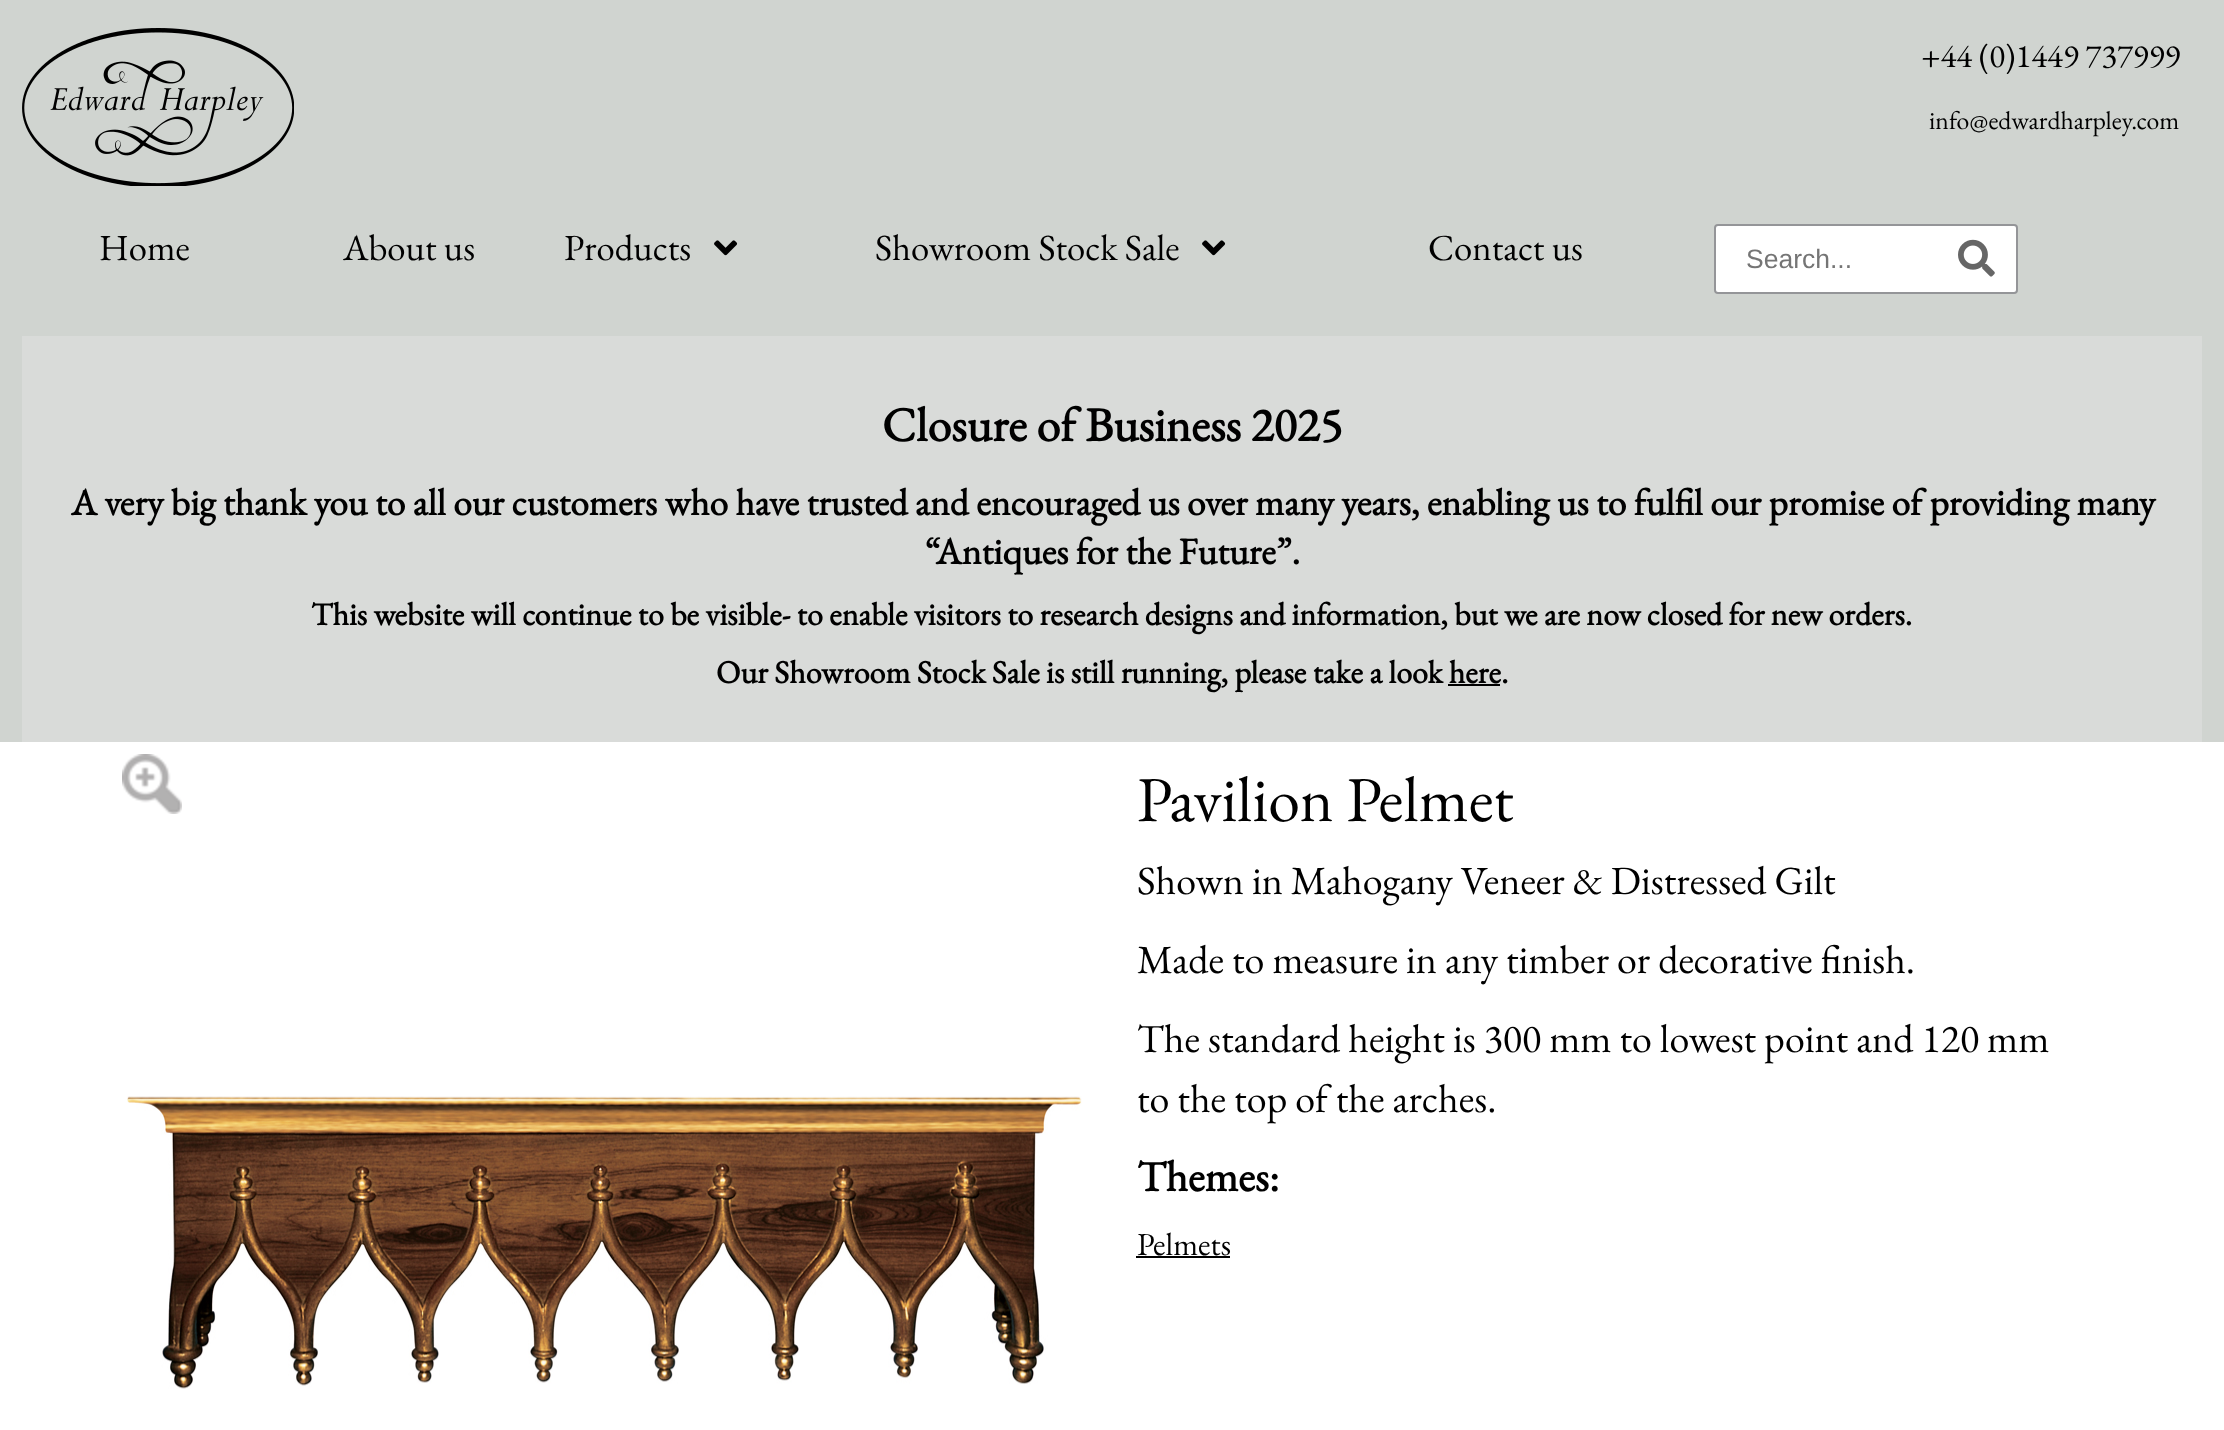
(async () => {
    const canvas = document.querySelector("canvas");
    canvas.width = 2224;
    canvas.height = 1430;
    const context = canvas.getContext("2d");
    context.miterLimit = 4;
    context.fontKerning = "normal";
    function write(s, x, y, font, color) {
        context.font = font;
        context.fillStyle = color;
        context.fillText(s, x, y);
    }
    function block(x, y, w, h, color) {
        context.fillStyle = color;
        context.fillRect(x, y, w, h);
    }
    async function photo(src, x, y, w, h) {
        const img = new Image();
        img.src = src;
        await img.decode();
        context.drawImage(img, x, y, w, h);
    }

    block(0, 0, 2224, 1430, "rgb(208, 212, 208)");
    await photo("media/1.png", 22, 28, 272, 158);
    write("+44 (0)1449 737999", 1921, 67, "33px EB Garamond", "rgb(0, 0, 0)");
    write("info@edwardharpley.com", 1929, 129, "25.75px EB Garamond", "rgb(0, 0, 0)");
    write("Home", 99, 260, "36.75px EB Garamond", "rgb(0, 0, 0)");
    write("About us", 343, 260, "36.75px EB Garamond", "rgb(0, 0, 0)");
    write("Products", 564, 260, "36.75px EB Garamond", "rgb(0, 0, 0)");
    await photo("media/2.png", 714, 240, 24, 16);
    write("Showroom Stock Sale", 875, 260, "36.75px EB Garamond", "rgb(0, 0, 0)");
    await photo("media/2.png", 1202, 240, 24, 16);
    write("Contact us", 1428, 260, "36.75px EB Garamond", "rgb(0, 0, 0)");
    context.fillStyle = "rgb(255, 255, 255)";
    context.beginPath();
    context.roundRect(1715, 225, 302, 68, 3);
    context.fill();
    context.strokeStyle = "rgb(148, 149, 152)";
    context.lineWidth = 2;
    context.stroke();
    write("Search...", 1746, 268, "26.5px Liberation Sans", "rgb(117, 117, 117)");
    await photo("media/3.png", 1958, 239, 37, 38);
    block(22, 336, 2180, 406, "rgb(217, 219, 217)");
    write("Closure of Business 2025", 882, 441, "bold 48px EB Garamond", "rgb(0, 0, 0)");
    write("A very big thank you to all our customers who have trusted and encouraged us over many years, enabling us to fulfil our promise of providing many", 71, 515, "bold 37.45px EB Garamond", "rgb(0, 0, 0)");
    write("“Antiques for the Future”.", 925, 564, "bold 37.45px EB Garamond", "rgb(0, 0, 0)");
    write("This website will continue to be visible- to enable visitors to research designs and information, but we are now closed for new orders.", 311, 625, "bold 32px EB Garamond", "rgb(0, 0, 0)");
    write("Our Showroom Stock Sale is still running, please take a look here.", 716, 683, "bold 32px EB Garamond", "rgb(0, 0, 0)");
    block(1448, 684, 52, 2, "rgb(0, 0, 0)");
    block(0, 742, 2224, 688, "rgb(255, 255, 255)");
    await photo("media/4.png", 122, 754, 60, 60);
    await photo("media/5.png", 127, 1096, 955, 293);
    write("Pavilion Pelmet", 1137, 821, "64px EB Garamond", "rgb(0, 0, 0)");
    write("Shown in Mahogany Veneer & Distressed Gilt", 1137, 894, "40px EB Garamond", "rgb(0, 0, 0)");
    write("Made to measure in any timber or decorative finish.", 1137, 973, "40px EB Garamond", "rgb(0, 0, 0)");
    write("The standard height is 300 mm to lowest point and 120 mm", 1137, 1052, "40px EB Garamond", "rgb(0, 0, 0)");
    write("to the top of the arches.", 1137, 1112, "40px EB Garamond", "rgb(0, 0, 0)");
    write("Themes:", 1137, 1191, "bold 43px EB Garamond", "rgb(0, 0, 0)");
    write("Pelmets", 1137, 1255, "32px EB Garamond", "rgb(0, 0, 0)");
    block(1136, 1256, 94, 2, "rgb(0, 0, 0)");
})();
